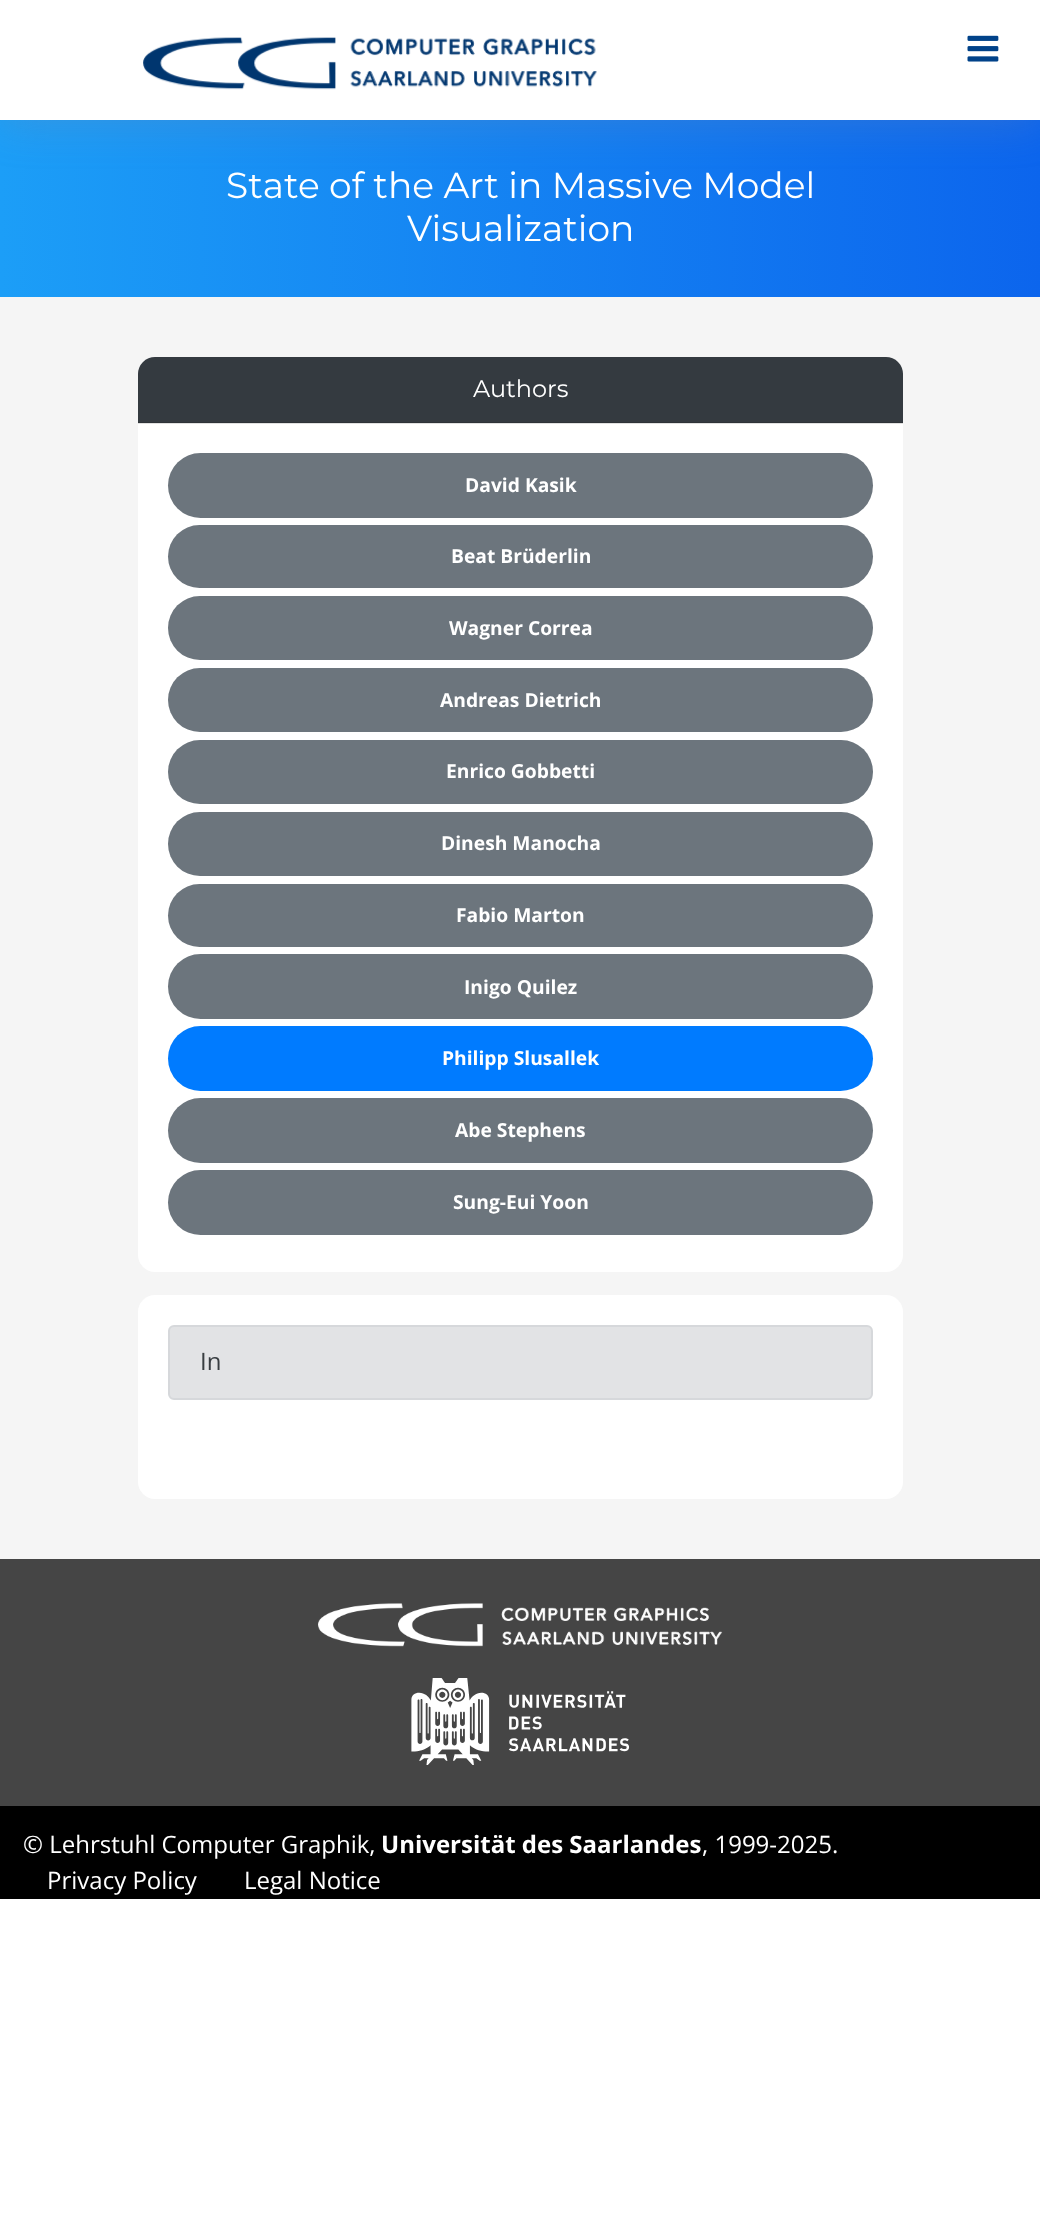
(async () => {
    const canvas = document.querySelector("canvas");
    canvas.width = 1040;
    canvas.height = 2224;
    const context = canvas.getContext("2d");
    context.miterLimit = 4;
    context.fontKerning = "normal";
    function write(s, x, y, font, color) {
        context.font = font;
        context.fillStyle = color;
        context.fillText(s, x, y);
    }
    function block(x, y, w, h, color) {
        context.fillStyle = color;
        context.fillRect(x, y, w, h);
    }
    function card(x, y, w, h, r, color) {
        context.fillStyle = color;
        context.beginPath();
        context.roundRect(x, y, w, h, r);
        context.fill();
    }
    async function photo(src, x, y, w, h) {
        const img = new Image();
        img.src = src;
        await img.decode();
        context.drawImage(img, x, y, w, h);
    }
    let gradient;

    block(0, 0, 1040, 2224, "rgb(255, 255, 255)");
    gradient = context.createLinearGradient(0, 149, 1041, 148);
    gradient.addColorStop(0, "rgb(28, 158, 247)");
    gradient.addColorStop(1, "rgb(12, 101, 237)");
    context.fillStyle = gradient;
    context.fillRect(0, 120, 1040, 177);
    context.fillStyle = "rgba(127, 137, 161, 0.3)";
    context.filter = "blur(22.5px)";
    context.beginPath();
    context.rect(0, 0, 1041, 120);
    context.fill();
    context.filter = "none";
    block(0, 0, 1040, 120, "rgb(255, 255, 255)");
    await photo("media/1.png", 143, 37, 454, 53);
    await photo("media/2.png", 967, 35, 32, 27);
    write("State of the Art in Massive Model", 226, 198, "100 36px Montserrat", "rgb(255, 255, 255)");
    write("Visualization", 407, 241, "100 36px Montserrat", "rgb(255, 255, 255)");
    block(0, 297, 1040, 1262, "rgb(245, 245, 245)");
    card(138, 357, 765, 915, 17, "rgb(255, 255, 255)");
    block(138, 423, 765, 1, "rgb(224, 224, 224)");
    context.fillStyle = "rgb(52, 58, 64)";
    context.beginPath();
    context.roundRect(138, 357, 765, 66, [17, 17, 0, 0]);
    context.fill();
    block(138, 422, 765, 1, "rgb(46, 51, 56)");
    write("Authors", 473, 397, "100 24px Montserrat", "rgb(255, 255, 255)");
    card(168, 453, 705, 65, 32.5, "rgb(108, 117, 125)");
    write("David Kasik", 465, 492, "bold 19.25px Open Sans", "rgb(255, 255, 255)");
    card(168, 525, 705, 63, 31.5, "rgb(108, 117, 125)");
    write("Beat Brüderlin", 451, 563, "bold 19.25px Open Sans", "rgb(255, 255, 255)");
    card(168, 596, 705, 64, 32, "rgb(108, 117, 125)");
    write("Wagner Correa", 449, 635, "bold 19.25px Open Sans", "rgb(255, 255, 255)");
    card(168, 668, 705, 64, 32, "rgb(108, 117, 125)");
    write("Andreas Dietrich", 440, 707, "bold 19.25px Open Sans", "rgb(255, 255, 255)");
    card(168, 740, 705, 64, 32, "rgb(108, 117, 125)");
    write("Enrico Gobbetti", 446, 778, "bold 19.25px Open Sans", "rgb(255, 255, 255)");
    card(168, 812, 705, 64, 32, "rgb(108, 117, 125)");
    write("Dinesh Manocha", 441, 850, "bold 19.25px Open Sans", "rgb(255, 255, 255)");
    card(168, 884, 705, 63, 31.5, "rgb(108, 117, 125)");
    write("Fabio Marton", 456, 922, "bold 19.25px Open Sans", "rgb(255, 255, 255)");
    card(168, 954, 705, 65, 32.5, "rgb(108, 117, 125)");
    write("Inigo Quilez", 464, 994, "bold 19.25px Open Sans", "rgb(255, 255, 255)");
    card(168, 1026, 705, 65, 32.5, "rgb(0, 123, 255)");
    write("Philipp Slusallek", 442, 1065, "bold 19.25px Open Sans", "rgb(255, 255, 255)");
    card(168, 1098, 705, 65, 32.5, "rgb(108, 117, 125)");
    write("Abe Stephens", 455, 1137, "bold 19.25px Open Sans", "rgb(255, 255, 255)");
    card(168, 1170, 705, 65, 32.5, "rgb(108, 117, 125)");
    write("Sung-Eui Yoon", 453, 1209, "bold 19.25px Open Sans", "rgb(255, 255, 255)");
    card(138, 1295, 765, 204, 17, "rgb(255, 255, 255)");
    context.fillStyle = "rgb(226, 227, 229)";
    context.beginPath();
    context.roundRect(169, 1326, 703, 73, 5);
    context.fill();
    context.strokeStyle = "rgb(214, 216, 219)";
    context.lineWidth = 2;
    context.stroke();
    write("In", 200, 1370, "24px Open Sans", "rgb(56, 61, 65)");
    block(0, 1559, 1040, 247, "rgb(69, 69, 69)");
    await photo("media/3.png", 318, 1603, 405, 44);
    await photo("media/4.png", 411, 1678, 219, 87);
    block(0, 1806, 1040, 93, "rgb(0, 0, 0)");
    write("© Lehrstuhl Computer Graphik,", 23, 1853, "24px Open Sans", "rgb(255, 255, 255)");
    write("Universität des Saarlandes", 381, 1853, "bold 24px Open Sans", "rgb(255, 255, 255)");
    write(", 1999-2025.", 702, 1853, "24px Open Sans", "rgb(255, 255, 255)");
    write("Privacy Policy", 47, 1889, "24px Open Sans", "rgb(255, 255, 255)");
    write("Legal Notice", 244, 1889, "24px Open Sans", "rgb(255, 255, 255)");
})();
